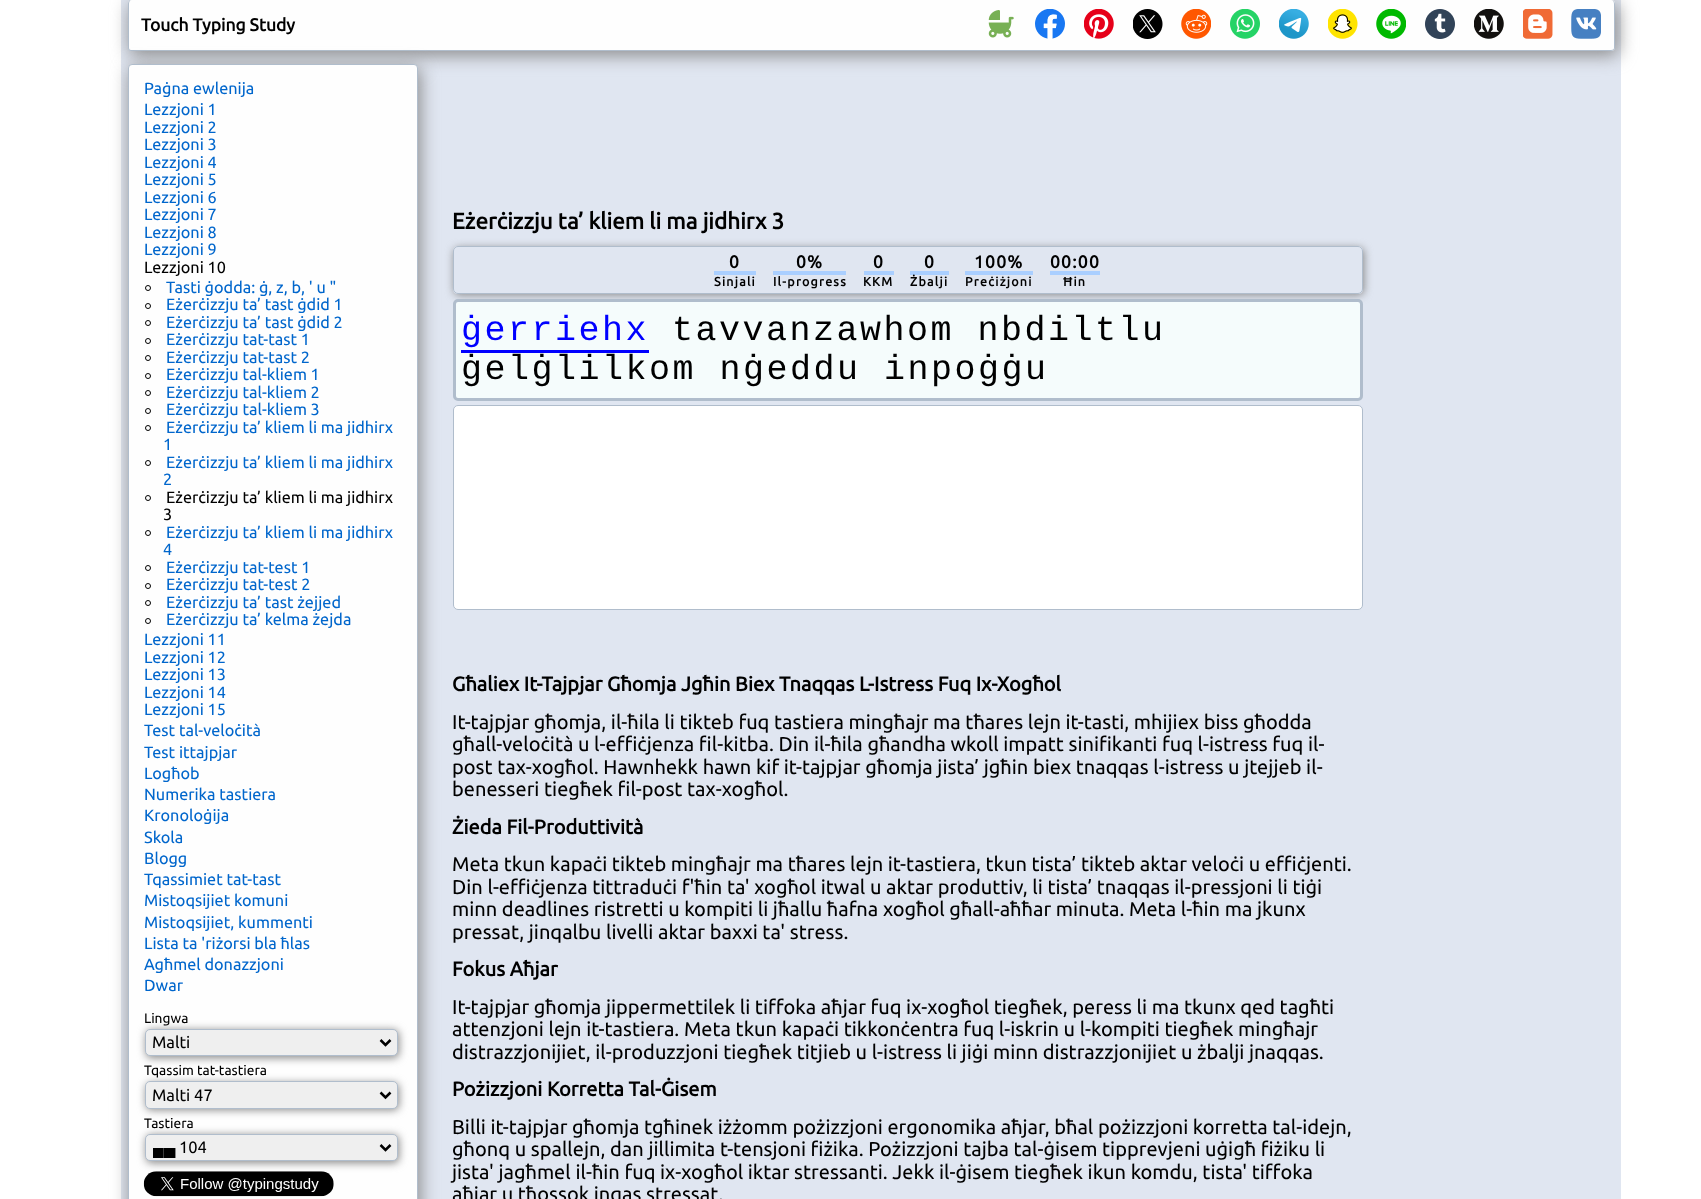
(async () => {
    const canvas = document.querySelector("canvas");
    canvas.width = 1701;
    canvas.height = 1199;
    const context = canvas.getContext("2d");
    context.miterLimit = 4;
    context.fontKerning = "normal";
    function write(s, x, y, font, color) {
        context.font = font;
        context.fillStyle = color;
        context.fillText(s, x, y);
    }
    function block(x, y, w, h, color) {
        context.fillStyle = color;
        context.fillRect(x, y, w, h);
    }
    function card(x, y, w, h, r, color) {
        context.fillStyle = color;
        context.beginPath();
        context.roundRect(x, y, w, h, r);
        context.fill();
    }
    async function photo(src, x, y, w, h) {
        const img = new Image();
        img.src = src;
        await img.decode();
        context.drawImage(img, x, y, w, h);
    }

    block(0, 0, 1701, 1199, "rgb(255, 255, 255)");
    block(121, 0, 1500, 1199, "rgb(224, 230, 241)");
    context.fillStyle = "rgb(136, 136, 136)";
    context.filter = "blur(9px)";
    context.beginPath();
    context.roundRect(130, 4, 1488, 51, 4);
    context.fill();
    context.filter = "none";
    card(128, 0, 1487, 51, 4, "rgb(254, 254, 254)");
    context.fillStyle = "rgb(176, 189, 204)";
    context.beginPath();
    context.moveTo(131, 0);
    context.lineTo(1611, 0);
    context.bezierCurveTo(1613, 0, 1615, 2, 1615, 4);
    context.lineTo(1615, 48);
    context.bezierCurveTo(1615, 50, 1613, 51, 1611, 51);
    context.lineTo(131, 51);
    context.bezierCurveTo(129, 51, 128, 50, 128, 48);
    context.lineTo(128, 4);
    context.bezierCurveTo(128, 2, 129, 0, 131, 0);
    context.closePath();
    context.moveTo(131, 0);
    context.lineTo(1611, 0);
    context.bezierCurveTo(1613, 0, 1614, 2, 1614, 4);
    context.lineTo(1614, 48);
    context.bezierCurveTo(1614, 49, 1613, 50, 1611, 50);
    context.lineTo(131, 50);
    context.bezierCurveTo(130, 50, 129, 49, 129, 48);
    context.lineTo(129, 4);
    context.bezierCurveTo(129, 2, 130, 0, 131, 0);
    context.closePath();
    context.fill("evenodd");
    write("Touch Typing Study", 141, 31, "bold 17.5px Ubuntu", "rgb(0, 0, 0)");
    await photo("media/1.png", 988, 10, 26, 28);
    await photo("media/2.png", 1035, 9, 30, 30);
    await photo("media/3.png", 1084, 9, 30, 30);
    await photo("media/4.png", 1133, 9, 30, 30);
    await photo("media/5.png", 1181, 9, 30, 30);
    await photo("media/6.png", 1230, 9, 30, 30);
    await photo("media/7.png", 1279, 9, 30, 30);
    await photo("media/8.png", 1328, 9, 30, 30);
    await photo("media/9.png", 1376, 9, 30, 30);
    await photo("media/10.png", 1425, 9, 30, 30);
    await photo("media/11.png", 1474, 9, 30, 30);
    await photo("media/12.png", 1523, 9, 30, 30);
    await photo("media/13.png", 1571, 9, 30, 30);
    context.fillStyle = "rgb(136, 136, 136)";
    context.filter = "blur(9px)";
    context.beginPath();
    context.roundRect(130, 68, 290, 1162, 4);
    context.fill();
    context.filter = "none";
    context.fillStyle = "rgb(254, 254, 254)";
    context.beginPath();
    context.roundRect(128.5, 64.5, 289, 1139, 3.5);
    context.fill();
    context.strokeStyle = "rgb(176, 189, 204)";
    context.stroke();
    write("Paġna ewlenija", 144, 94, "16.25px Ubuntu", "rgb(0, 102, 204)");
    write("Lezzjoni 1", 144, 115, "16.25px Ubuntu", "rgb(0, 102, 204)");
    write("Lezzjoni 2", 144, 133, "16.25px Ubuntu", "rgb(0, 102, 204)");
    write("Lezzjoni 3", 144, 150, "16.25px Ubuntu", "rgb(0, 102, 204)");
    write("Lezzjoni 4", 144, 168, "16.25px Ubuntu", "rgb(0, 102, 204)");
    write("Lezzjoni 5", 144, 185, "16.25px Ubuntu", "rgb(0, 102, 204)");
    write("Lezzjoni 6", 144, 203, "16.25px Ubuntu", "rgb(0, 102, 204)");
    write("Lezzjoni 7", 144, 220, "16.25px Ubuntu", "rgb(0, 102, 204)");
    write("Lezzjoni 8", 144, 238, "16.25px Ubuntu", "rgb(0, 102, 204)");
    write("Lezzjoni 9", 144, 255, "16.25px Ubuntu", "rgb(0, 102, 204)");
    write("Lezzjoni 10", 144, 273, "16.25px Ubuntu", "rgb(0, 0, 0)");
    context.beginPath();
    context.arc(148, 288, 2.5, 0, Math.PI * 2);
    context.strokeStyle = "rgb(0, 0, 0)";
    context.stroke();
    write("Tasti ġodda: ġ, z, b, ' u \"", 166, 293, "16.25px Ubuntu", "rgb(0, 102, 204)");
    context.beginPath();
    context.arc(148, 306, 2.5, 0, Math.PI * 2);
    context.stroke();
    write("Eżerċizzju ta’ tast ġdid 1", 166, 310, "16.25px Ubuntu", "rgb(0, 102, 204)");
    context.beginPath();
    context.arc(148, 323, 2.5, 0, Math.PI * 2);
    context.stroke();
    write("Eżerċizzju ta’ tast ġdid 2", 166, 328, "16.25px Ubuntu", "rgb(0, 102, 204)");
    context.beginPath();
    context.arc(148, 341, 2.5, 0, Math.PI * 2);
    context.stroke();
    write("Eżerċizzju tat-tast 1", 166, 345, "16.25px Ubuntu", "rgb(0, 102, 204)");
    context.beginPath();
    context.arc(148, 358, 2.5, 0, Math.PI * 2);
    context.stroke();
    write("Eżerċizzju tat-tast 2", 166, 363, "16.25px Ubuntu", "rgb(0, 102, 204)");
    context.beginPath();
    context.arc(148, 376, 2.5, 0, Math.PI * 2);
    context.stroke();
    write("Eżerċizzju tal-kliem 1", 166, 380, "16.25px Ubuntu", "rgb(0, 102, 204)");
    context.beginPath();
    context.arc(148, 393, 2.5, 0, Math.PI * 2);
    context.stroke();
    write("Eżerċizzju tal-kliem 2", 166, 398, "16.25px Ubuntu", "rgb(0, 102, 204)");
    context.beginPath();
    context.arc(148, 411, 2.5, 0, Math.PI * 2);
    context.stroke();
    write("Eżerċizzju tal-kliem 3", 166, 415, "16.25px Ubuntu", "rgb(0, 102, 204)");
    context.beginPath();
    context.arc(148, 428, 2.5, 0, Math.PI * 2);
    context.stroke();
    write("Eżerċizzju ta’ kliem li ma jidhirx", 166, 433, "16.25px Ubuntu", "rgb(0, 102, 204)");
    write("1", 163, 450, "16.25px Ubuntu", "rgb(0, 102, 204)");
    context.beginPath();
    context.arc(148, 463, 2.5, 0, Math.PI * 2);
    context.stroke();
    write("Eżerċizzju ta’ kliem li ma jidhirx", 166, 468, "16.25px Ubuntu", "rgb(0, 102, 204)");
    write("2", 163, 485, "16.25px Ubuntu", "rgb(0, 102, 204)");
    context.beginPath();
    context.arc(148, 498, 2.5, 0, Math.PI * 2);
    context.stroke();
    write("Eżerċizzju ta’ kliem li ma jidhirx", 166, 503, "16.25px Ubuntu", "rgb(0, 0, 0)");
    write("3", 163, 520, "16.25px Ubuntu", "rgb(0, 0, 0)");
    context.beginPath();
    context.arc(148, 533, 2.5, 0, Math.PI * 2);
    context.stroke();
    write("Eżerċizzju ta’ kliem li ma jidhirx", 166, 538, "16.25px Ubuntu", "rgb(0, 102, 204)");
    write("4", 163, 555, "16.25px Ubuntu", "rgb(0, 102, 204)");
    context.beginPath();
    context.arc(148, 568, 2.5, 0, Math.PI * 2);
    context.stroke();
    write("Eżerċizzju tat-test 1", 166, 573, "16.25px Ubuntu", "rgb(0, 102, 204)");
    context.beginPath();
    context.arc(148, 586, 2.5, 0, Math.PI * 2);
    context.stroke();
    write("Eżerċizzju tat-test 2", 166, 590, "16.25px Ubuntu", "rgb(0, 102, 204)");
    context.beginPath();
    context.arc(148, 603, 2.5, 0, Math.PI * 2);
    context.stroke();
    write("Eżerċizzju ta’ tast żejjed", 166, 608, "16.25px Ubuntu", "rgb(0, 102, 204)");
    context.beginPath();
    context.arc(148, 621, 2.5, 0, Math.PI * 2);
    context.stroke();
    write("Eżerċizzju ta’ kelma żejda", 166, 625, "16.25px Ubuntu", "rgb(0, 102, 204)");
    write("Lezzjoni 11", 144, 645, "16.25px Ubuntu", "rgb(0, 102, 204)");
    write("Lezzjoni 12", 144, 663, "16.25px Ubuntu", "rgb(0, 102, 204)");
    write("Lezzjoni 13", 144, 680, "16.25px Ubuntu", "rgb(0, 102, 204)");
    write("Lezzjoni 14", 144, 698, "16.25px Ubuntu", "rgb(0, 102, 204)");
    write("Lezzjoni 15", 144, 715, "16.25px Ubuntu", "rgb(0, 102, 204)");
    write("Test tal-veloċità", 144, 736, "16.25px Ubuntu", "rgb(0, 102, 204)");
    write("Test ittajpjar", 144, 758, "16.25px Ubuntu", "rgb(0, 102, 204)");
    write("Logħob", 144, 779, "16.25px Ubuntu", "rgb(0, 102, 204)");
    write("Numerika tastiera", 144, 800, "16.25px Ubuntu", "rgb(0, 102, 204)");
    write("Kronoloġija", 144, 821, "16.25px Ubuntu", "rgb(0, 102, 204)");
    write("Skola", 144, 843, "16.25px Ubuntu", "rgb(0, 102, 204)");
    write("Blogg", 144, 864, "16.25px Ubuntu", "rgb(0, 102, 204)");
    write("Tqassimiet tat-tast", 144, 885, "16.25px Ubuntu", "rgb(0, 102, 204)");
    write("Mistoqsijiet komuni", 144, 906, "16.25px Ubuntu", "rgb(0, 102, 204)");
    write("Mistoqsijiet, kummenti", 144, 928, "16.25px Ubuntu", "rgb(0, 102, 204)");
    write("Lista ta 'riżorsi bla ħlas", 144, 949, "16.25px Ubuntu", "rgb(0, 102, 204)");
    write("Agħmel donazzjoni", 144, 970, "16.25px Ubuntu", "rgb(0, 102, 204)");
    write("Dwar", 144, 991, "16.25px Ubuntu", "rgb(0, 102, 204)");
    context.fillStyle = "rgb(136, 136, 136)";
    context.filter = "blur(4px)";
    context.beginPath();
    context.roundRect(146, 1030, 253, 28, 5);
    context.fill();
    context.filter = "none";
    write("Lingwa", 144, 1023, "13.75px Ubuntu", "rgb(0, 0, 0)");
    context.fillStyle = "rgb(239, 239, 239)";
    context.beginPath();
    context.roundRect(145.5, 1029.5, 252, 26, 4.5);
    context.fill();
    context.strokeStyle = "rgb(176, 189, 204)";
    context.stroke();
    context.beginPath();
    context.moveTo(380.5, 1040);
    context.lineTo(385.5, 1045);
    context.lineTo(390.5, 1040);
    context.strokeStyle = "rgb(0, 0, 0)";
    context.lineWidth = 2.5;
    context.stroke();
    write("Malti", 152, 1048, "16.5px Ubuntu", "rgb(0, 0, 0)");
    context.fillStyle = "rgb(136, 136, 136)";
    context.filter = "blur(4px)";
    context.beginPath();
    context.roundRect(146, 1083, 253, 27, 5);
    context.fill();
    context.filter = "none";
    write("Tqassim tat-tastiera", 144, 1075, "13.75px Ubuntu", "rgb(0, 0, 0)");
    context.fillStyle = "rgb(239, 239, 239)";
    context.beginPath();
    context.roundRect(145.5, 1081.5, 252, 27, 4.5);
    context.fill();
    context.strokeStyle = "rgb(176, 189, 204)";
    context.lineWidth = 1;
    context.stroke();
    context.beginPath();
    context.moveTo(380.5, 1092.5);
    context.lineTo(385.5, 1097.5);
    context.lineTo(390.5, 1092.5);
    context.strokeStyle = "rgb(0, 0, 0)";
    context.lineWidth = 2.5;
    context.stroke();
    write("Malti 47", 152, 1101, "16.5px Ubuntu", "rgb(0, 0, 0)");
    context.fillStyle = "rgb(136, 136, 136)";
    context.filter = "blur(4px)";
    context.beginPath();
    context.roundRect(146, 1135, 253, 28, 5);
    context.fill();
    context.filter = "none";
    write("Tastiera", 144, 1128, "13.75px Ubuntu", "rgb(0, 0, 0)");
    context.fillStyle = "rgb(239, 239, 239)";
    context.beginPath();
    context.roundRect(145.5, 1134.5, 252, 26, 4.5);
    context.fill();
    context.strokeStyle = "rgb(176, 189, 204)";
    context.lineWidth = 1;
    context.stroke();
    context.beginPath();
    context.moveTo(380.5, 1145);
    context.lineTo(385.5, 1150);
    context.lineTo(390.5, 1145);
    context.strokeStyle = "rgb(0, 0, 0)";
    context.lineWidth = 2.5;
    context.stroke();
    context.save();
    context.beginPath();
    context.rect(153, 1138, 221, 21);
    context.clip();
    write("▄▄", 152, 1153, "16.5px Liberation Sans", "rgb(0, 0, 0)");
    context.restore();
    write("104", 179, 1153, "16.5px Ubuntu", "rgb(0, 0, 0)");
    await photo("media/14.png", 143, 1171, 191, 26);
    write("Eżerċizzju ta’ kliem li ma jidhirx 3", 452, 229, "bold 22.5px Ubuntu", "rgb(0, 0, 0)");
    context.save();
    context.beginPath();
    context.moveTo(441, 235);
    context.lineTo(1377, 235);
    context.lineTo(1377, 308);
    context.lineTo(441, 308);
    context.closePath();
    context.moveTo(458, 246);
    context.lineTo(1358, 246);
    context.bezierCurveTo(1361, 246, 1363, 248, 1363, 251);
    context.lineTo(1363, 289);
    context.bezierCurveTo(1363, 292, 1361, 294, 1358, 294);
    context.lineTo(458, 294);
    context.bezierCurveTo(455, 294, 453, 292, 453, 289);
    context.lineTo(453, 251);
    context.bezierCurveTo(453, 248, 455, 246, 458, 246);
    context.closePath();
    context.clip("evenodd");
    context.fillStyle = "rgb(136, 136, 136)";
    context.filter = "blur(4px)";
    context.beginPath();
    context.roundRect(454, 248, 910, 47, 5);
    context.fill();
    context.filter = "none";
    context.restore();
    context.beginPath();
    context.roundRect(453.5, 246.5, 909, 47, 4.5);
    context.strokeStyle = "rgb(176, 189, 204)";
    context.lineWidth = 1;
    context.stroke();
    context.letterSpacing = "1.25px";
    write("0", 729, 268, "bold 17.5px Ubuntu", "rgb(0, 0, 0)");
    block(714, 271, 42, 4, "rgb(170, 207, 255)");
    write("Sinjali", 714, 286, "bold 12.5px Ubuntu", "rgb(0, 0, 0)");
    write("0%", 796, 268, "bold 17.5px Ubuntu", "rgb(0, 0, 0)");
    block(773, 271, 73, 4, "rgb(170, 207, 255)");
    write("Il-progress", 773, 286, "bold 12.5px Ubuntu", "rgb(0, 0, 0)");
    write("0", 873, 268, "bold 17.5px Ubuntu", "rgb(0, 0, 0)");
    block(864, 271, 30, 4, "rgb(170, 207, 255)");
    write("KKM", 863, 286, "bold 12.5px Ubuntu", "rgb(0, 0, 0)");
    write("0", 924, 268, "bold 17.5px Ubuntu", "rgb(0, 0, 0)");
    block(910, 271, 39, 4, "rgb(170, 207, 255)");
    write("Żbalji", 910, 286, "bold 12.5px Ubuntu", "rgb(0, 0, 0)");
    write("100%", 974, 268, "bold 17.5px Ubuntu", "rgb(0, 0, 0)");
    block(965, 271, 68, 4, "rgb(170, 207, 255)");
    write("Preċiżjoni", 965, 286, "bold 12.5px Ubuntu", "rgb(0, 0, 0)");
    write("00:00", 1050, 268, "bold 17.5px Ubuntu", "rgb(0, 0, 0)");
    block(1050, 271, 50, 4, "rgb(170, 207, 255)");
    write("Ħin", 1063, 286, "bold 12.5px Ubuntu", "rgb(0, 0, 0)");
    context.fillStyle = "rgb(245, 252, 252)";
    context.beginPath();
    context.roundRect(454.5, 300.5, 907, 99, 3.5);
    context.fill();
    context.lineWidth = 3;
    context.stroke();
    context.letterSpacing = "2.5px";
    write("ġerriehx", 461, 340, "35px Liberation Mono", "rgb(0, 0, 255)");
    block(461, 350, 188, 3, "rgb(0, 0, 255)");
    write("tavvanzawhom nbdiltlu", 672, 340, "35px Liberation Mono", "rgb(0, 0, 0)");
    write("ġelġlilkom nġeddu inpoġġu", 461, 379, "35px Liberation Mono", "rgb(0, 0, 0)");
    context.fillStyle = "rgb(255, 255, 255)";
    context.beginPath();
    context.roundRect(453.5, 405.5, 909, 204, 4.5);
    context.fill();
    context.lineWidth = 1;
    context.stroke();
    context.letterSpacing = "0px";
    write("Għaliex It-Tajpjar Għomja Jgħin Biex Tnaqqas L-Istress Fuq Ix-Xogħol", 452, 691, "bold 20px Ubuntu", "rgb(0, 0, 0)");
    write("It-tajpjar għomja, il-ħila li tikteb fuq tastiera mingħajr ma tħares lejn it-tasti, mhijiex biss għodda", 452, 729, "20px Ubuntu", "rgb(0, 0, 0)");
    write("għall-veloċità u l-effiċjenza fil-kitba. Din il-ħila għandha wkoll impatt sinifikanti fuq l-istress fuq il-", 452, 751, "20px Ubuntu", "rgb(0, 0, 0)");
    write("post tax-xogħol. Hawnhekk hawn kif it-tajpjar għomja jista’ jgħin biex tnaqqas l-istress u jtejjeb il-", 452, 774, "20px Ubuntu", "rgb(0, 0, 0)");
    write("benesseri tiegħek fil-post tax-xogħol.", 452, 796, "20px Ubuntu", "rgb(0, 0, 0)");
    write("Żieda Fil-Produttività", 452, 834, "bold 20px Ubuntu", "rgb(0, 0, 0)");
    write("Meta tkun kapaċi tikteb mingħajr ma tħares lejn it-tastiera, tkun tista’ tikteb aktar veloċi u effiċjenti.", 452, 871, "20px Ubuntu", "rgb(0, 0, 0)");
    write("Din l-effiċjenza tittraduċi f'ħin ta' xogħol itwal u aktar produttiv, li tista’ tnaqqas il-pressjoni li tiġi", 452, 894, "20px Ubuntu", "rgb(0, 0, 0)");
    write("minn deadlines ristretti u kompiti li jħallu ħafna xogħol għall-aħħar minuta. Meta l-ħin ma jkunx", 452, 916, "20px Ubuntu", "rgb(0, 0, 0)");
    write("pressat, jinqalbu livelli aktar baxxi ta' stress.", 452, 939, "20px Ubuntu", "rgb(0, 0, 0)");
    write("Fokus Aħjar", 452, 976, "bold 20px Ubuntu", "rgb(0, 0, 0)");
    write("It-tajpjar għomja jippermettilek li tiffoka aħjar fuq ix-xogħol tiegħek, peress li ma tkunx qed tagħti", 452, 1014, "20px Ubuntu", "rgb(0, 0, 0)");
    write("attenzjoni lejn it-tastiera. Meta tkun kapaċi tikkonċentra fuq l-iskrin u l-kompiti tiegħek mingħajr", 452, 1036, "20px Ubuntu", "rgb(0, 0, 0)");
    write("distrazzjonijiet, il-produzzjoni tiegħek titjieb u l-istress li jiġi minn distrazzjonijiet u żbalji jnaqqas.", 452, 1059, "20px Ubuntu", "rgb(0, 0, 0)");
    write("Pożizzjoni Korretta Tal-Ġisem", 452, 1096, "bold 20px Ubuntu", "rgb(0, 0, 0)");
    write("Billi it-tajpjar għomja tgħinek iżżomm pożizzjoni ergonomika aħjar, bħal pożizzjoni korretta tal-idejn,", 452, 1134, "20px Ubuntu", "rgb(0, 0, 0)");
    write("għonq u spallejn, dan jillimita t-tensjoni fiżika. Pożizzjoni tajba tal-ġisem tipprevjeni uġigħ fiżiku li", 452, 1156, "20px Ubuntu", "rgb(0, 0, 0)");
    write("jista' jagħmel il-ħin fuq ix-xogħol iktar stressanti. Jekk il-ġisem tiegħek ikun komdu, tista' tiffoka", 452, 1179, "20px Ubuntu", "rgb(0, 0, 0)");
    write("aħjar u tħossok inqas stressat.", 452, 1201, "20px Ubuntu", "rgb(0, 0, 0)");
})();
